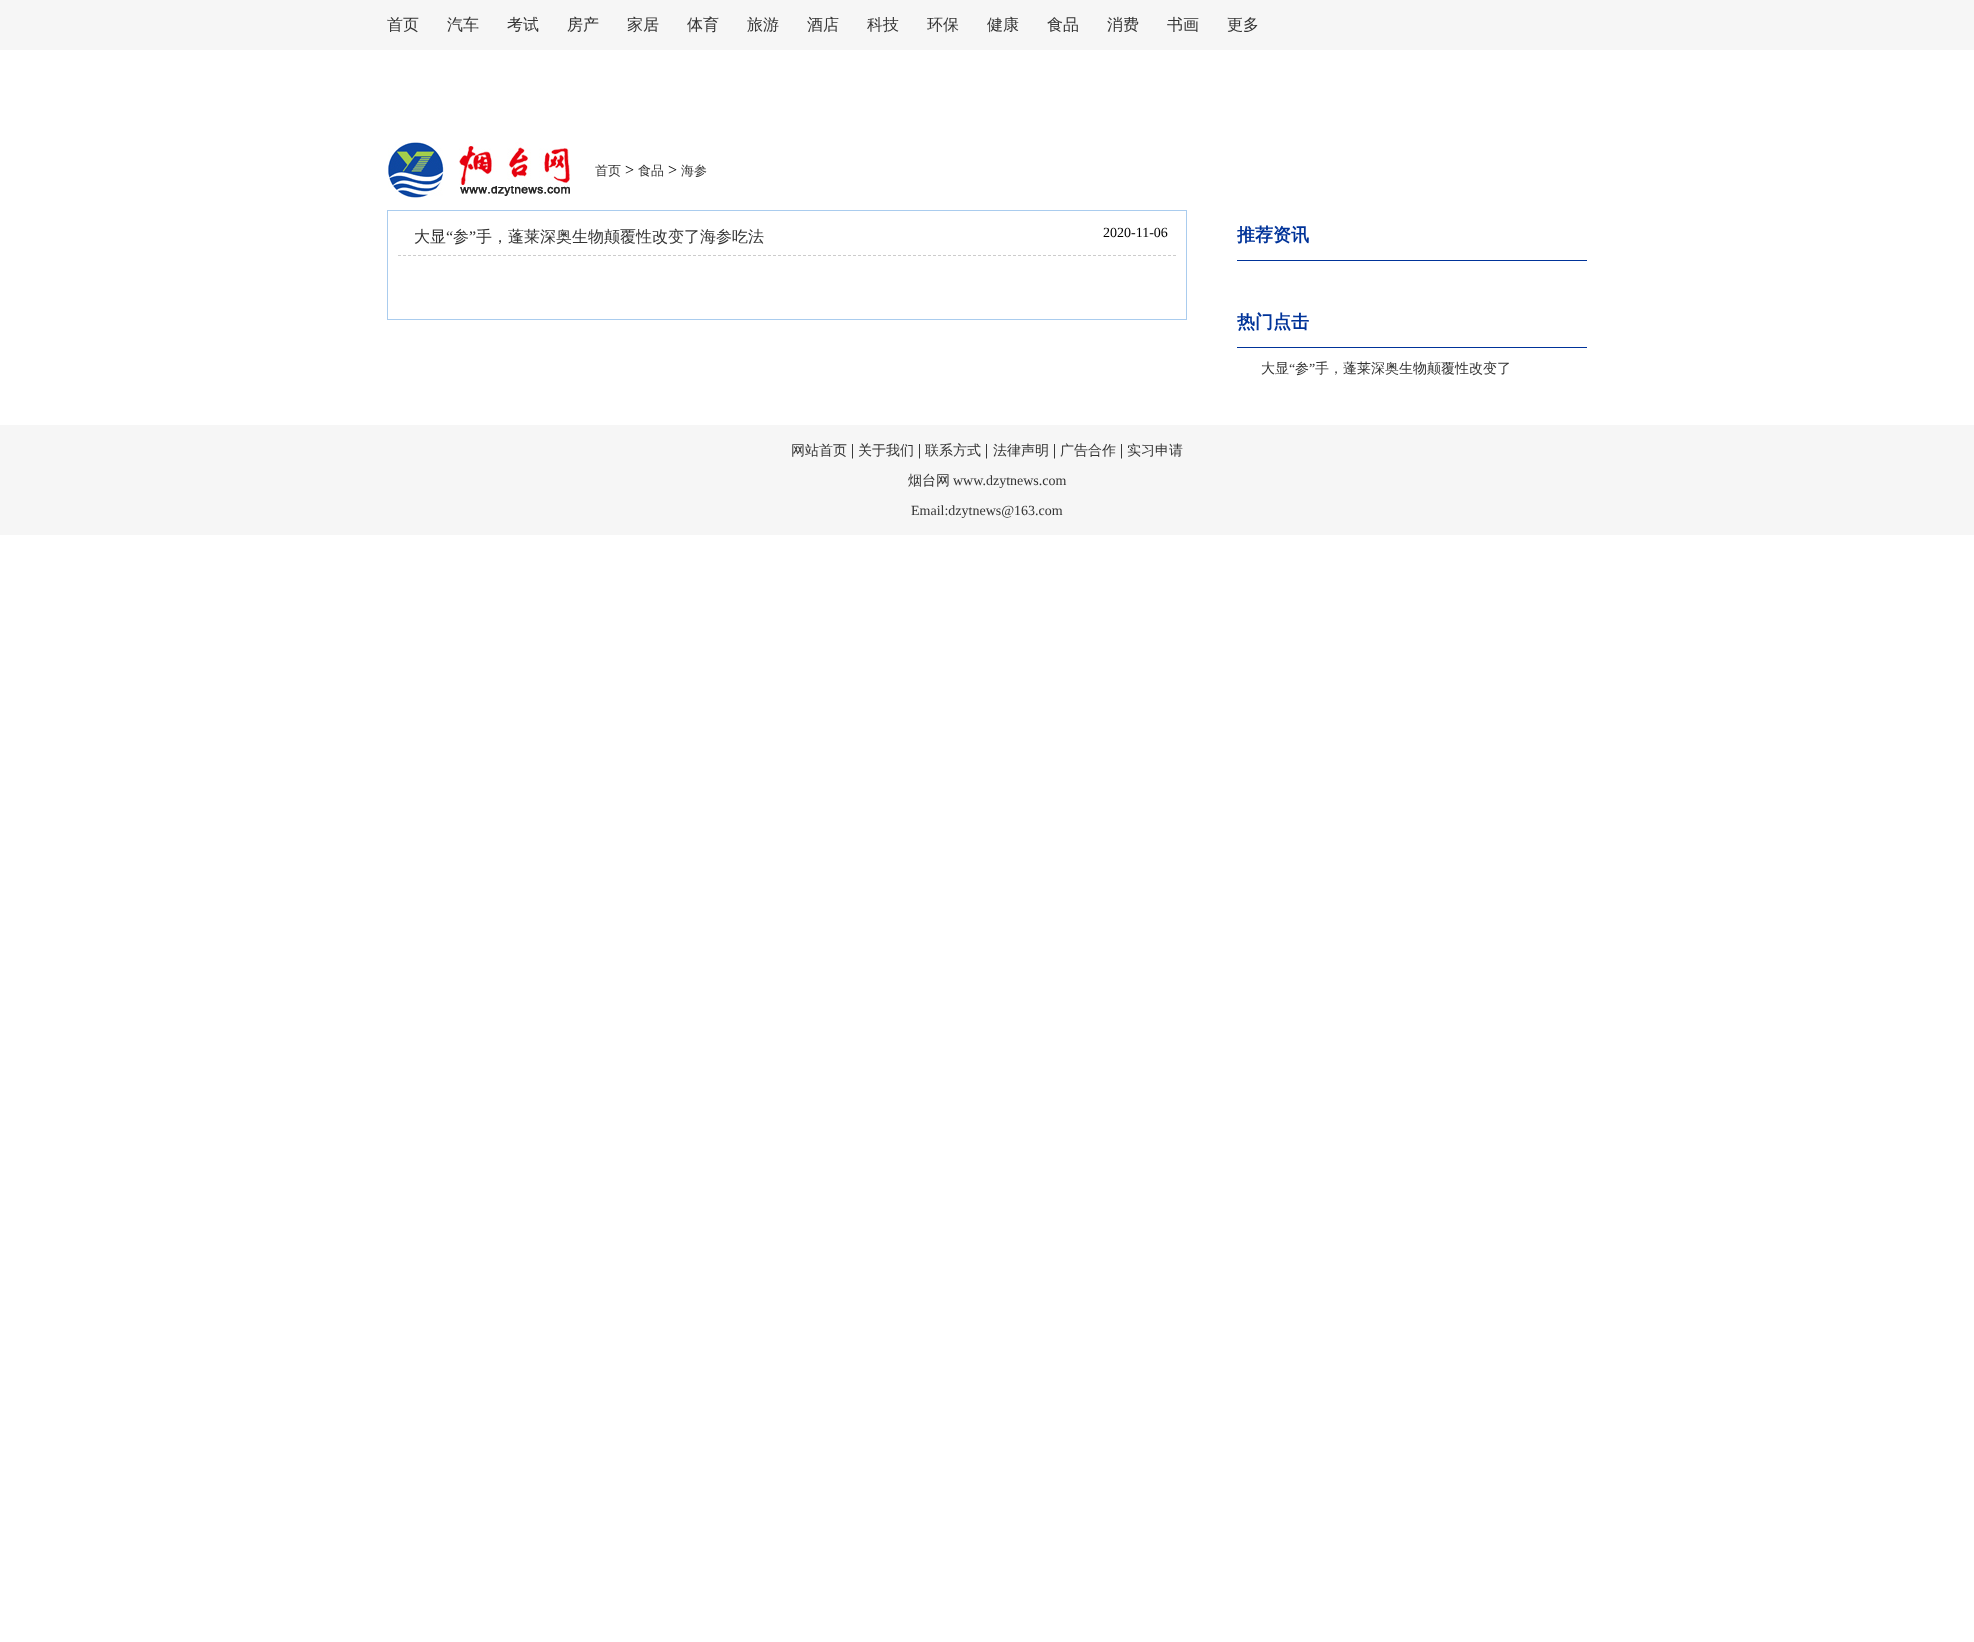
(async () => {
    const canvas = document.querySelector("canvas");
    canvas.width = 1974;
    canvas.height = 1642;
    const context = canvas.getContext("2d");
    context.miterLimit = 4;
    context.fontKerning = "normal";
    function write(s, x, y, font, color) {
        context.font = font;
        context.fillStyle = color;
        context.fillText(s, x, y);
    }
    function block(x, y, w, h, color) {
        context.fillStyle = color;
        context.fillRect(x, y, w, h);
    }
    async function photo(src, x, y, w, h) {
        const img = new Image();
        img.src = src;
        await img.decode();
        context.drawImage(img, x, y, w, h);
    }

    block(0, 0, 1974, 1642, "rgb(255, 255, 255)");
    block(0, 0, 1974, 50, "rgb(246, 246, 246)");
    write("首页", 387, 30, "500 16px WenQuanYi Zen Hei", "rgb(51, 51, 51)");
    write("汽车", 447, 30, "500 16px WenQuanYi Zen Hei", "rgb(51, 51, 51)");
    write("考试", 507, 30, "500 16px WenQuanYi Zen Hei", "rgb(51, 51, 51)");
    write("房产", 567, 30, "500 16px WenQuanYi Zen Hei", "rgb(51, 51, 51)");
    write("家居", 627, 30, "500 16px WenQuanYi Zen Hei", "rgb(51, 51, 51)");
    write("体育", 687, 30, "500 16px WenQuanYi Zen Hei", "rgb(51, 51, 51)");
    write("旅游", 747, 30, "500 16px WenQuanYi Zen Hei", "rgb(51, 51, 51)");
    write("酒店", 807, 30, "500 16px WenQuanYi Zen Hei", "rgb(51, 51, 51)");
    write("科技", 867, 30, "500 16px WenQuanYi Zen Hei", "rgb(51, 51, 51)");
    write("环保", 927, 30, "500 16px WenQuanYi Zen Hei", "rgb(51, 51, 51)");
    write("健康", 987, 30, "500 16px WenQuanYi Zen Hei", "rgb(51, 51, 51)");
    write("食品", 1047, 30, "500 16px WenQuanYi Zen Hei", "rgb(51, 51, 51)");
    write("消费", 1107, 30, "500 16px WenQuanYi Zen Hei", "rgb(51, 51, 51)");
    write("书画", 1167, 30, "500 16px WenQuanYi Zen Hei", "rgb(51, 51, 51)");
    write("更多", 1227, 30, "500 16px WenQuanYi Zen Hei", "rgb(51, 51, 51)");
    await photo("media/1.png", 388, 142, 182, 56);
    write("首页", 595, 175, "500 13px WenQuanYi Zen Hei", "rgb(51, 51, 51)");
    write(">", 625, 175, "16px Liberation Serif", "rgb(0, 0, 0)");
    write("食品", 638, 175, "500 13px WenQuanYi Zen Hei", "rgb(51, 51, 51)");
    write(">", 668, 175, "16px Liberation Serif", "rgb(0, 0, 0)");
    write("海参", 681, 175, "500 13px WenQuanYi Zen Hei", "rgb(51, 51, 51)");
    context.strokeStyle = "rgb(170, 204, 238)";
    context.strokeRect(387.5, 210.5, 799, 109);
    context.beginPath();
    context.moveTo(398, 255.5);
    context.lineTo(1176, 255.5);
    context.strokeStyle = "rgb(204, 204, 204)";
    context.setLineDash([3, 2]);
    context.stroke();
    write("大显", 414, 242, "500 16px WenQuanYi Zen Hei", "rgb(51, 51, 51)");
    write("“", 446, 242, "16px Liberation Serif", "rgb(51, 51, 51)");
    write("参", 453, 242, "500 16px WenQuanYi Zen Hei", "rgb(51, 51, 51)");
    write("”", 469, 242, "16px Liberation Serif", "rgb(51, 51, 51)");
    write("手，蓬莱深奥生物颠覆性改变了海参吃法", 476, 242, "500 16px WenQuanYi Zen Hei", "rgb(51, 51, 51)");
    write("2020-11-06", 1103, 237, "14px Liberation Serif", "rgb(0, 0, 0)");
    block(1237, 260, 350, 1, "rgb(0, 51, 153)");
    write("推荐资讯", 1237, 241, "bold 18px WenQuanYi Zen Hei", "rgb(0, 51, 153)");
    block(1237, 347, 350, 1, "rgb(0, 51, 153)");
    write("热门点击", 1237, 328, "bold 18px WenQuanYi Zen Hei", "rgb(0, 51, 153)");
    write("大显", 1261, 373, "500 14px WenQuanYi Zen Hei", "rgb(51, 51, 51)");
    write("“", 1289, 373, "14px Liberation Serif", "rgb(51, 51, 51)");
    write("参", 1295, 373, "500 14px WenQuanYi Zen Hei", "rgb(51, 51, 51)");
    write("”", 1309, 373, "14px Liberation Serif", "rgb(51, 51, 51)");
    write("手，蓬莱深奥生物颠覆性改变了", 1315, 373, "500 14px WenQuanYi Zen Hei", "rgb(51, 51, 51)");
    block(0, 425, 1974, 110, "rgb(246, 246, 246)");
    write("网站首页", 791, 455, "500 14px WenQuanYi Zen Hei", "rgb(51, 51, 51)");
    write("|", 851, 455, "16px Liberation Serif", "rgb(0, 0, 0)");
    write("关于我们", 858, 455, "500 14px WenQuanYi Zen Hei", "rgb(51, 51, 51)");
    write("|", 918, 455, "16px Liberation Serif", "rgb(0, 0, 0)");
    write("联系方式", 925, 455, "500 14px WenQuanYi Zen Hei", "rgb(51, 51, 51)");
    write("|", 985, 455, "16px Liberation Serif", "rgb(0, 0, 0)");
    write("法律声明", 993, 455, "500 14px WenQuanYi Zen Hei", "rgb(51, 51, 51)");
    write("|", 1053, 455, "16px Liberation Serif", "rgb(0, 0, 0)");
    write("广告合作", 1060, 455, "500 14px WenQuanYi Zen Hei", "rgb(51, 51, 51)");
    write("|", 1120, 455, "16px Liberation Serif", "rgb(0, 0, 0)");
    write("实习申请", 1127, 455, "500 14px WenQuanYi Zen Hei", "rgb(51, 51, 51)");
    write("烟台网", 908, 485, "500 14px WenQuanYi Zen Hei", "rgb(51, 51, 51)");
    write("www.dzytnews.com", 953, 485, "14px Liberation Serif", "rgb(51, 51, 51)");
    write("Email:dzytnews@163.com", 911, 515, "14px Liberation Serif", "rgb(51, 51, 51)");
})();
